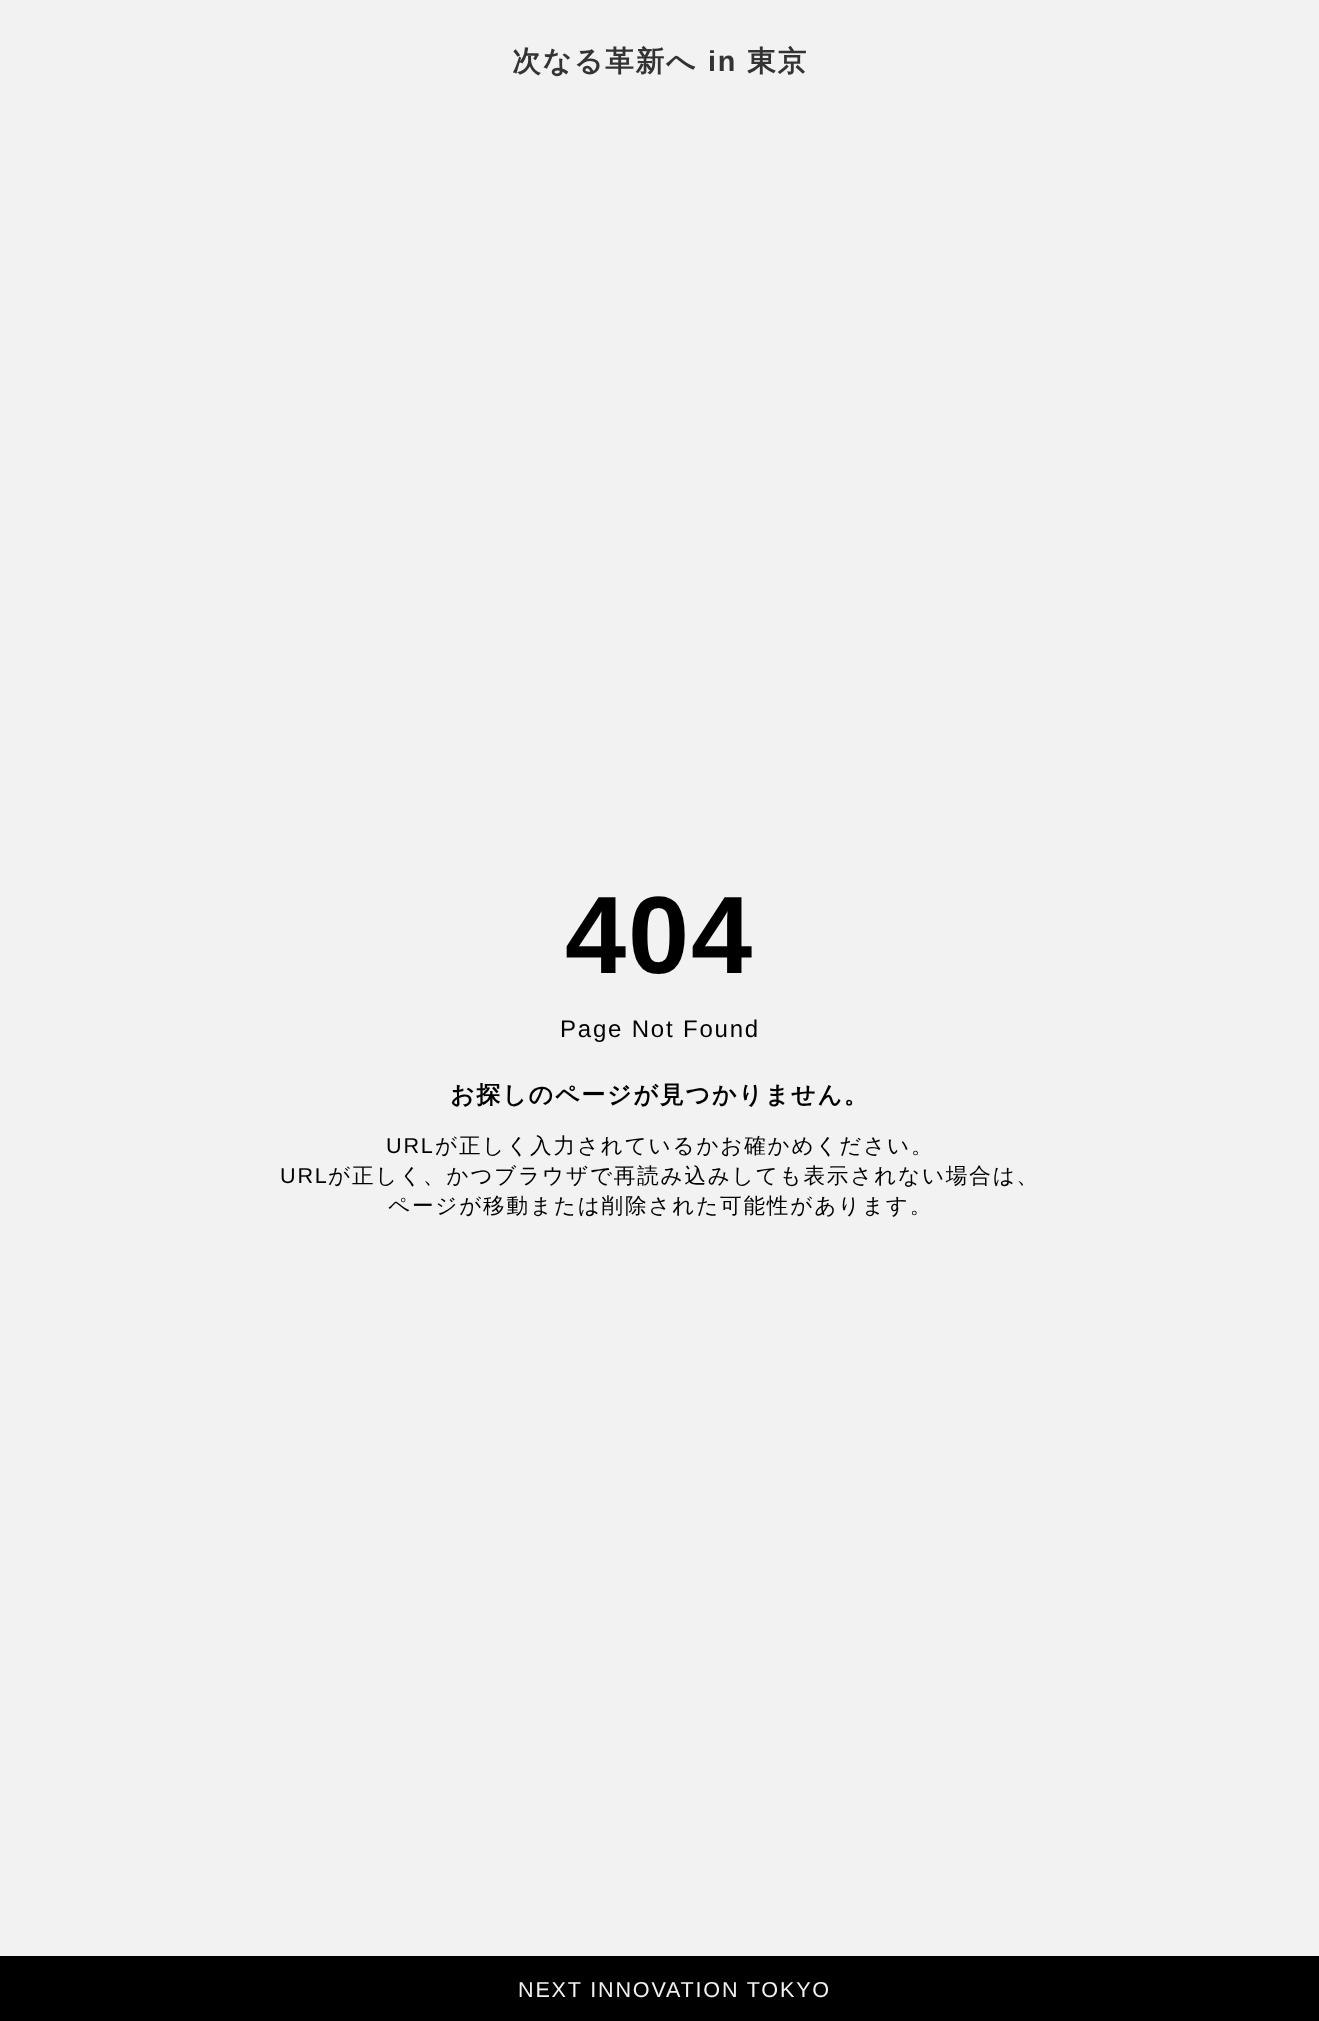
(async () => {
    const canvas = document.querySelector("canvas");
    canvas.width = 1319;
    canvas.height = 2021;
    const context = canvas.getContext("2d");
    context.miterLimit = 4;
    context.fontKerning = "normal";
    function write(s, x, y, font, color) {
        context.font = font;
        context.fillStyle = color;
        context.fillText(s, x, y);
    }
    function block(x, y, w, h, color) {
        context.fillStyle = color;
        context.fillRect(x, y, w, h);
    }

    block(0, 0, 1319, 2021, "rgb(242, 242, 242)");
    context.letterSpacing = "1.8px";
    write("次なる革新へ", 512, 71, "bold 28.75px WenQuanYi Zen Hei", "rgb(51, 51, 51)");
    write("in", 708, 71, "bold 28.75px Liberation Sans", "rgb(51, 51, 51)");
    write("東京", 747, 71, "bold 28.75px WenQuanYi Zen Hei", "rgb(51, 51, 51)");
    write("404", 565, 973, "bold 110px Liberation Sans", "rgb(0, 0, 0)");
    write("Page Not Found", 560, 1037, "24px Liberation Sans", "rgb(0, 0, 0)");
    write("お探しのページが見つかりません。", 450, 1103, "bold 24px WenQuanYi Zen Hei", "rgb(0, 0, 0)");
    write("URL", 386, 1153, "21.6px Liberation Sans", "rgb(0, 0, 0)");
    write("が正しく入力されているかお確かめください。", 435, 1153, "500 21.6px WenQuanYi Zen Hei", "rgb(0, 0, 0)");
    write("URL", 280, 1183, "21.6px Liberation Sans", "rgb(0, 0, 0)");
    write("が正しく、かつブラウザで再読み込みしても表示されない場合は、", 328, 1183, "500 21.6px WenQuanYi Zen Hei", "rgb(0, 0, 0)");
    write("ページが移動または削除された可能性があります。", 388, 1213, "500 21.6px WenQuanYi Zen Hei", "rgb(0, 0, 0)");
    block(0, 1956, 1319, 65, "rgb(0, 0, 0)");
    write("NEXT INNOVATION TOKYO", 518, 1997, "21.6px Liberation Sans", "rgb(242, 242, 242)");
})();
